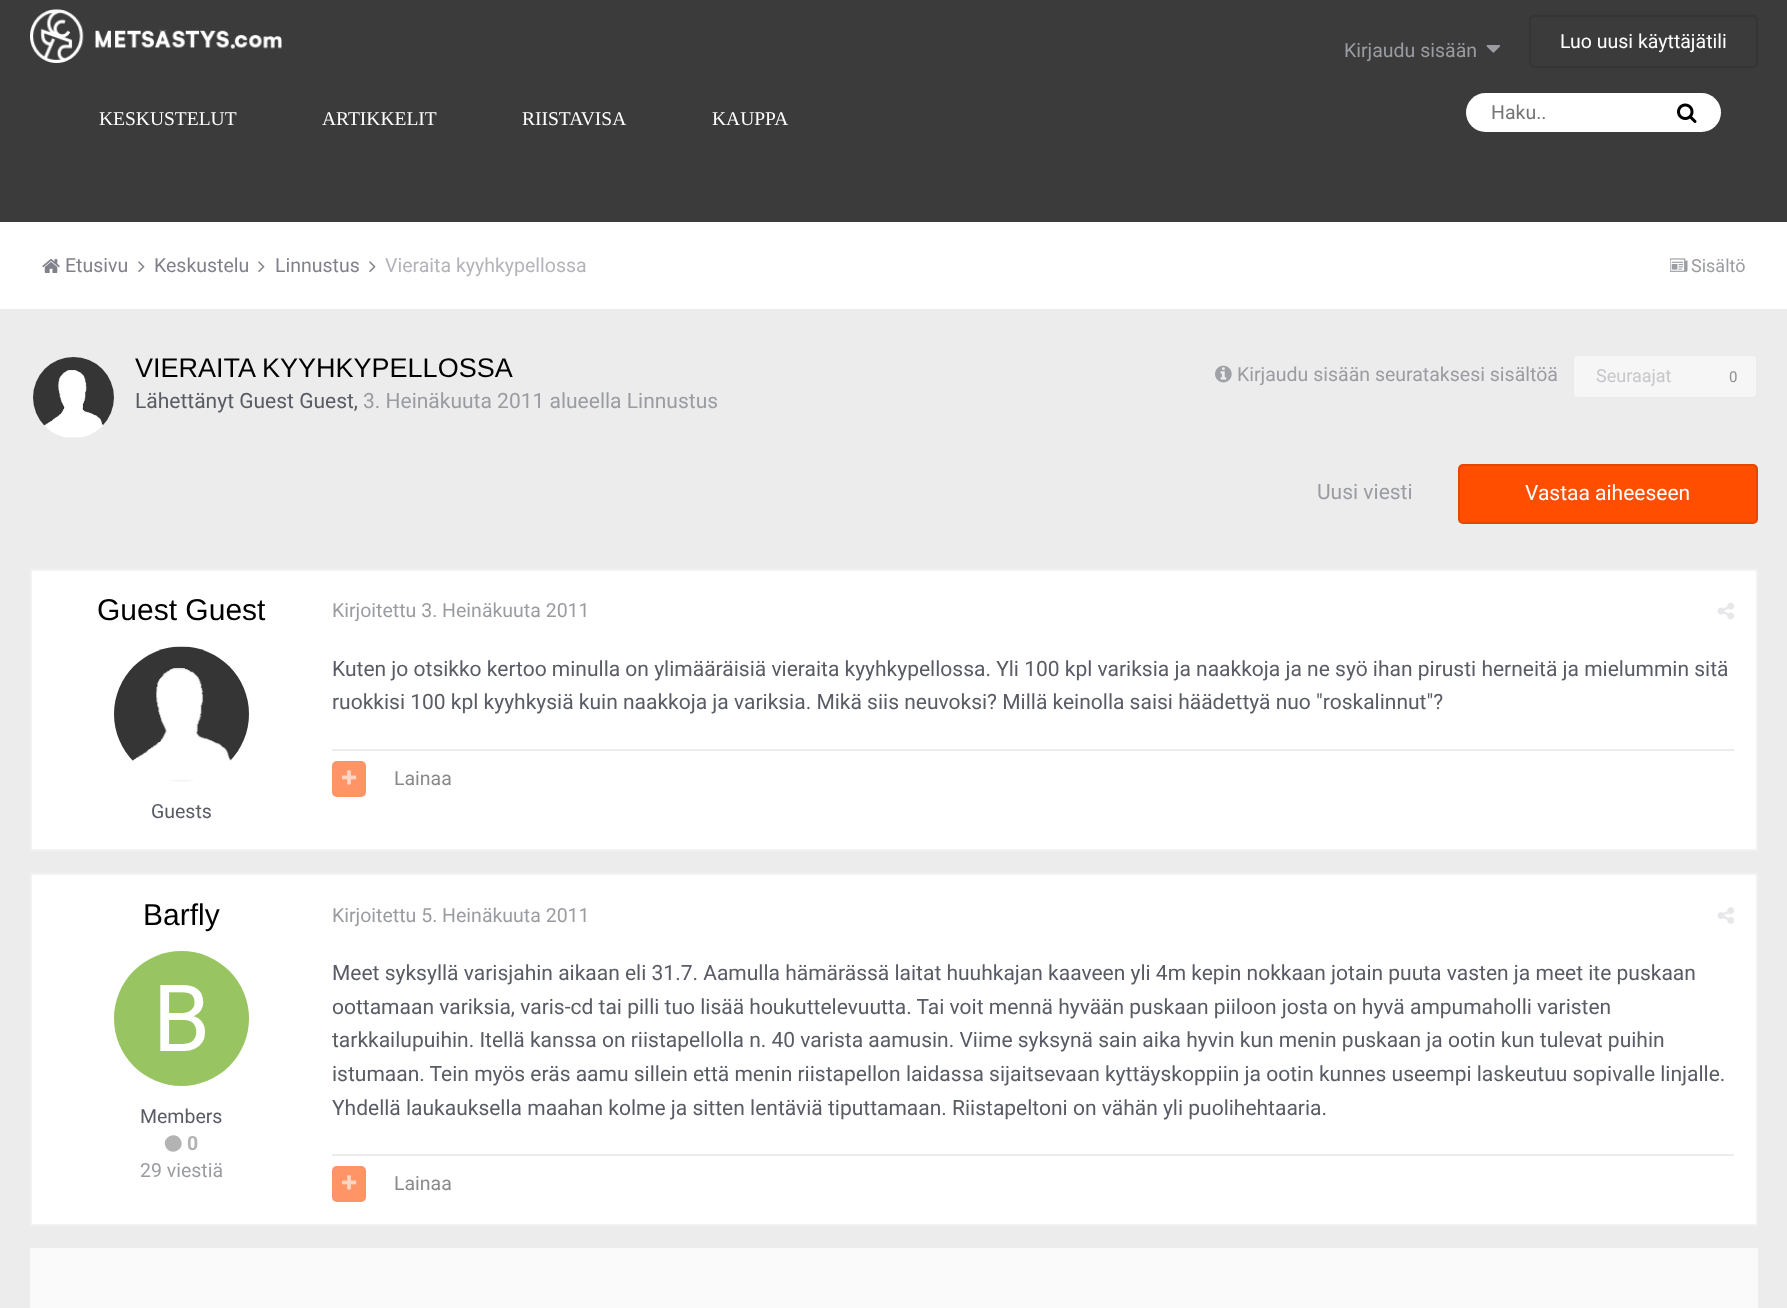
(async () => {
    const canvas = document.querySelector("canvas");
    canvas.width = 1787;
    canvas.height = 1308;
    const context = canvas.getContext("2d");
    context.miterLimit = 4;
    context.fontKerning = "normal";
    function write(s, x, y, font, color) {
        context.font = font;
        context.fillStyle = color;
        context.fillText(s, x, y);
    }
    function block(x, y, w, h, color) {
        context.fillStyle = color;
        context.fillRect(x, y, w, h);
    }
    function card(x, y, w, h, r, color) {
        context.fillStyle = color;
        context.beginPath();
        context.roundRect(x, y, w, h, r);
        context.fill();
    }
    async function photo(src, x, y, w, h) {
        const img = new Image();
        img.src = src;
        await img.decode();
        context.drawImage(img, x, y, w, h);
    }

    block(0, 0, 1787, 1308, "rgb(236, 236, 236)");
    block(0, 0, 1787, 222, "rgb(59, 59, 59)");
    await photo("media/1.png", 30, 9, 252, 54);
    write("Kirjaudu sisään", 1344, 57, "19.5px Roboto", "rgb(155, 156, 162)");
    await photo("media/2.png", 1486, 45, 15, 8);
    context.beginPath();
    context.roundRect(1530, 16, 227, 51, 4);
    context.strokeStyle = "rgb(53, 53, 53)";
    context.lineWidth = 2;
    context.stroke();
    write("Luo uusi käyttäjätili", 1560, 48, "19.5px Roboto", "rgb(255, 255, 255)");
    write("KESKUSTELUT", 99, 125, "19.5px Liberation Serif", "rgb(255, 255, 255)");
    write("ARTIKKELIT", 322, 125, "19.5px Liberation Serif", "rgb(255, 255, 255)");
    write("RIISTAVISA", 522, 125, "19.5px Liberation Serif", "rgb(255, 255, 255)");
    write("KAUPPA", 712, 125, "19.5px Liberation Serif", "rgb(255, 255, 255)");
    card(1466, 93, 255, 39, 19.5, "rgb(255, 255, 255)");
    write("Haku..", 1491, 119, "19.5px Roboto", "rgb(117, 117, 117)");
    await photo("media/3.png", 1677, 103, 20, 20);
    block(0, 222, 1787, 87, "rgb(255, 255, 255)");
    await photo("media/4.png", 42, 259, 18, 14);
    write("Etusivu", 65, 272, "19.5px Roboto", "rgb(129, 129, 140)");
    await photo("media/5.png", 138, 261, 7, 11);
    write("Keskustelu", 154, 272, "19.5px Roboto", "rgb(129, 129, 140)");
    await photo("media/5.png", 258, 261, 7, 11);
    write("Linnustus", 275, 272, "19.5px Roboto", "rgb(129, 129, 140)");
    await photo("media/5.png", 369, 261, 7, 11);
    write("Vieraita kyyhkypellossa", 385, 272, "19.5px Roboto", "rgb(179, 179, 186)");
    await photo("media/6.png", 1670, 258, 18, 14);
    write("Sisältö", 1691, 272, "18px Roboto", "rgb(155, 156, 162)");
    context.fillStyle = "rgb(255, 255, 255)";
    context.beginPath();
    context.arc(73.5, 397.5, 40.5, 0, Math.PI * 2);
    context.fill();
    await photo("media/7.png", 33, 357, 81, 81);
    write("VIERAITA KYYHKYPELLOSSA", 135, 377, "27px Liberation Sans", "rgb(0, 0, 0)");
    write("Lähettänyt Guest Guest,", 135, 408, "21px Roboto", "rgb(89, 91, 101)");
    write("3. Heinäkuuta 2011 alueella Linnustus", 363, 408, "21px Roboto", "rgb(155, 156, 162)");
    await photo("media/8.png", 1215, 365, 17, 18);
    write("Kirjaudu sisään seurataksesi sisältöä", 1237, 381, "19.5px Roboto", "rgb(155, 156, 162)");
    context.fillStyle = "rgb(246, 246, 246)";
    context.beginPath();
    context.roundRect(1573, 355, 184, 43, 4);
    context.fill();
    context.strokeStyle = "rgb(235, 235, 235)";
    context.stroke();
    write("Seuraajat", 1596, 382, "18px Roboto", "rgb(198, 199, 202)");
    write("0", 1729, 382, "15px Roboto", "rgb(144, 144, 144)");
    write("Uusi viesti", 1317, 499, "21px Roboto", "rgb(155, 156, 162)");
    card(1458, 464, 300, 60, 5, "rgb(255, 78, 0)");
    context.beginPath();
    context.roundRect(1459, 465, 298, 58, 4);
    context.strokeStyle = "rgba(0, 0, 0, 0.1)";
    context.stroke();
    write("Vastaa aiheeseen", 1525, 500, "21px Roboto", "rgb(255, 255, 255)");
    context.beginPath();
    context.rect(31, 570, 1726, 280);
    context.fill();
    context.strokeStyle = "rgb(242, 242, 242)";
    context.stroke();
    write("Guest Guest", 97, 620, "30px Liberation Sans", "rgb(0, 0, 0)");
    await photo("media/9.png", 114, 646, 135, 136);
    write("Guests", 151, 818, "19.5px Roboto", "rgb(89, 91, 101)");
    write("Kirjoitettu 3. Heinäkuuta 2011", 332, 617, "19.5px Roboto", "rgb(155, 156, 162)");
    await photo("media/10.png", 1717, 602, 17, 18);
    write("Kuten jo otsikko kertoo minulla on ylimääräisiä vieraita kyyhkypellossa. Yli 100 kpl variksia ja naakkoja ja ne syö ihan pirusti herneitä ja mielummin sitä", 332, 676, "21px Roboto", "rgb(89, 91, 101)");
    write("ruokkisi 100 kpl kyyhkysiä kuin naakkoja ja variksia. Mikä siis neuvoksi? Millä keinolla saisi häädettyä nuo \"roskalinnut\"?", 332, 709, "21px Roboto", "rgb(89, 91, 101)");
    block(332, 749, 1402, 2, "rgb(236, 236, 236)");
    card(332, 761, 34, 36, 5, "rgb(255, 149, 102)");
    context.strokeStyle = "rgba(102, 102, 102, 0.03)";
    context.strokeRect(333, 762, 32, 34);
    await photo("media/11.png", 342, 770, 15, 15);
    write("Lainaa", 394, 785, "19.5px Roboto", "rgb(138, 138, 138)");
    context.fillStyle = "rgb(255, 255, 255)";
    context.beginPath();
    context.rect(31, 874, 1726, 351);
    context.fill();
    context.strokeStyle = "rgb(242, 242, 242)";
    context.stroke();
    write("Barfly", 143, 925, "30px Liberation Sans", "rgb(0, 0, 0)");
    await photo("media/12.png", 114, 951, 135, 135);
    write("Members", 140, 1123, "19.5px Roboto", "rgb(89, 91, 101)");
    context.fillStyle = "rgb(179, 179, 179)";
    context.beginPath();
    context.moveTo(180.5, 1139.5);
    context.bezierCurveTo(186, 1149, 171.5, 1157, 166, 1147.5);
    context.bezierCurveTo(160.5, 1138.5, 175, 1130, 180.5, 1139.5);
    context.closePath();
    context.fill();
    write("0", 187, 1150, "bold 19.5px Roboto", "rgb(179, 179, 179)");
    write("29 viestiä", 140, 1177, "19.5px Roboto", "rgb(155, 156, 162)");
    write("Kirjoitettu 5. Heinäkuuta 2011", 332, 922, "19.5px Roboto", "rgb(155, 156, 162)");
    await photo("media/13.png", 1717, 907, 17, 17);
    write("Meet syksyllä varisjahin aikaan eli 31.7. Aamulla hämärässä laitat huuhkajan kaaveen yli 4m kepin nokkaan jotain puuta vasten ja meet ite puskaan", 332, 980, "21px Roboto", "rgb(89, 91, 101)");
    write("oottamaan variksia, varis-cd tai pilli tuo lisää houkuttelevuutta. Tai voit mennä hyvään puskaan piiloon josta on hyvä ampumaholli varisten", 332, 1014, "21px Roboto", "rgb(89, 91, 101)");
    write("tarkkailupuihin. Itellä kanssa on riistapellolla n. 40 varista aamusin. Viime syksynä sain aika hyvin kun menin puskaan ja ootin kun tulevat puihin", 332, 1047, "21px Roboto", "rgb(89, 91, 101)");
    write("istumaan. Tein myös eräs aamu sillein että menin riistapellon laidassa sijaitsevaan kyttäyskoppiin ja ootin kunnes useempi laskeutuu sopivalle linjalle.", 332, 1081, "21px Roboto", "rgb(89, 91, 101)");
    write("Yhdellä laukauksella maahan kolme ja sitten lentäviä tiputtamaan. Riistapeltoni on vähän yli puolihehtaaria.", 332, 1115, "21px Roboto", "rgb(89, 91, 101)");
    block(332, 1154, 1402, 2, "rgb(236, 236, 236)");
    card(332, 1166, 34, 36, 5, "rgb(255, 149, 102)");
    context.strokeStyle = "rgba(102, 102, 102, 0.03)";
    context.strokeRect(333, 1167, 32, 34);
    await photo("media/11.png", 342, 1175, 15, 15);
    write("Lainaa", 394, 1190, "19.5px Roboto", "rgb(138, 138, 138)");
    block(30, 1248, 1728, 60, "rgb(250, 250, 250)");
})();
